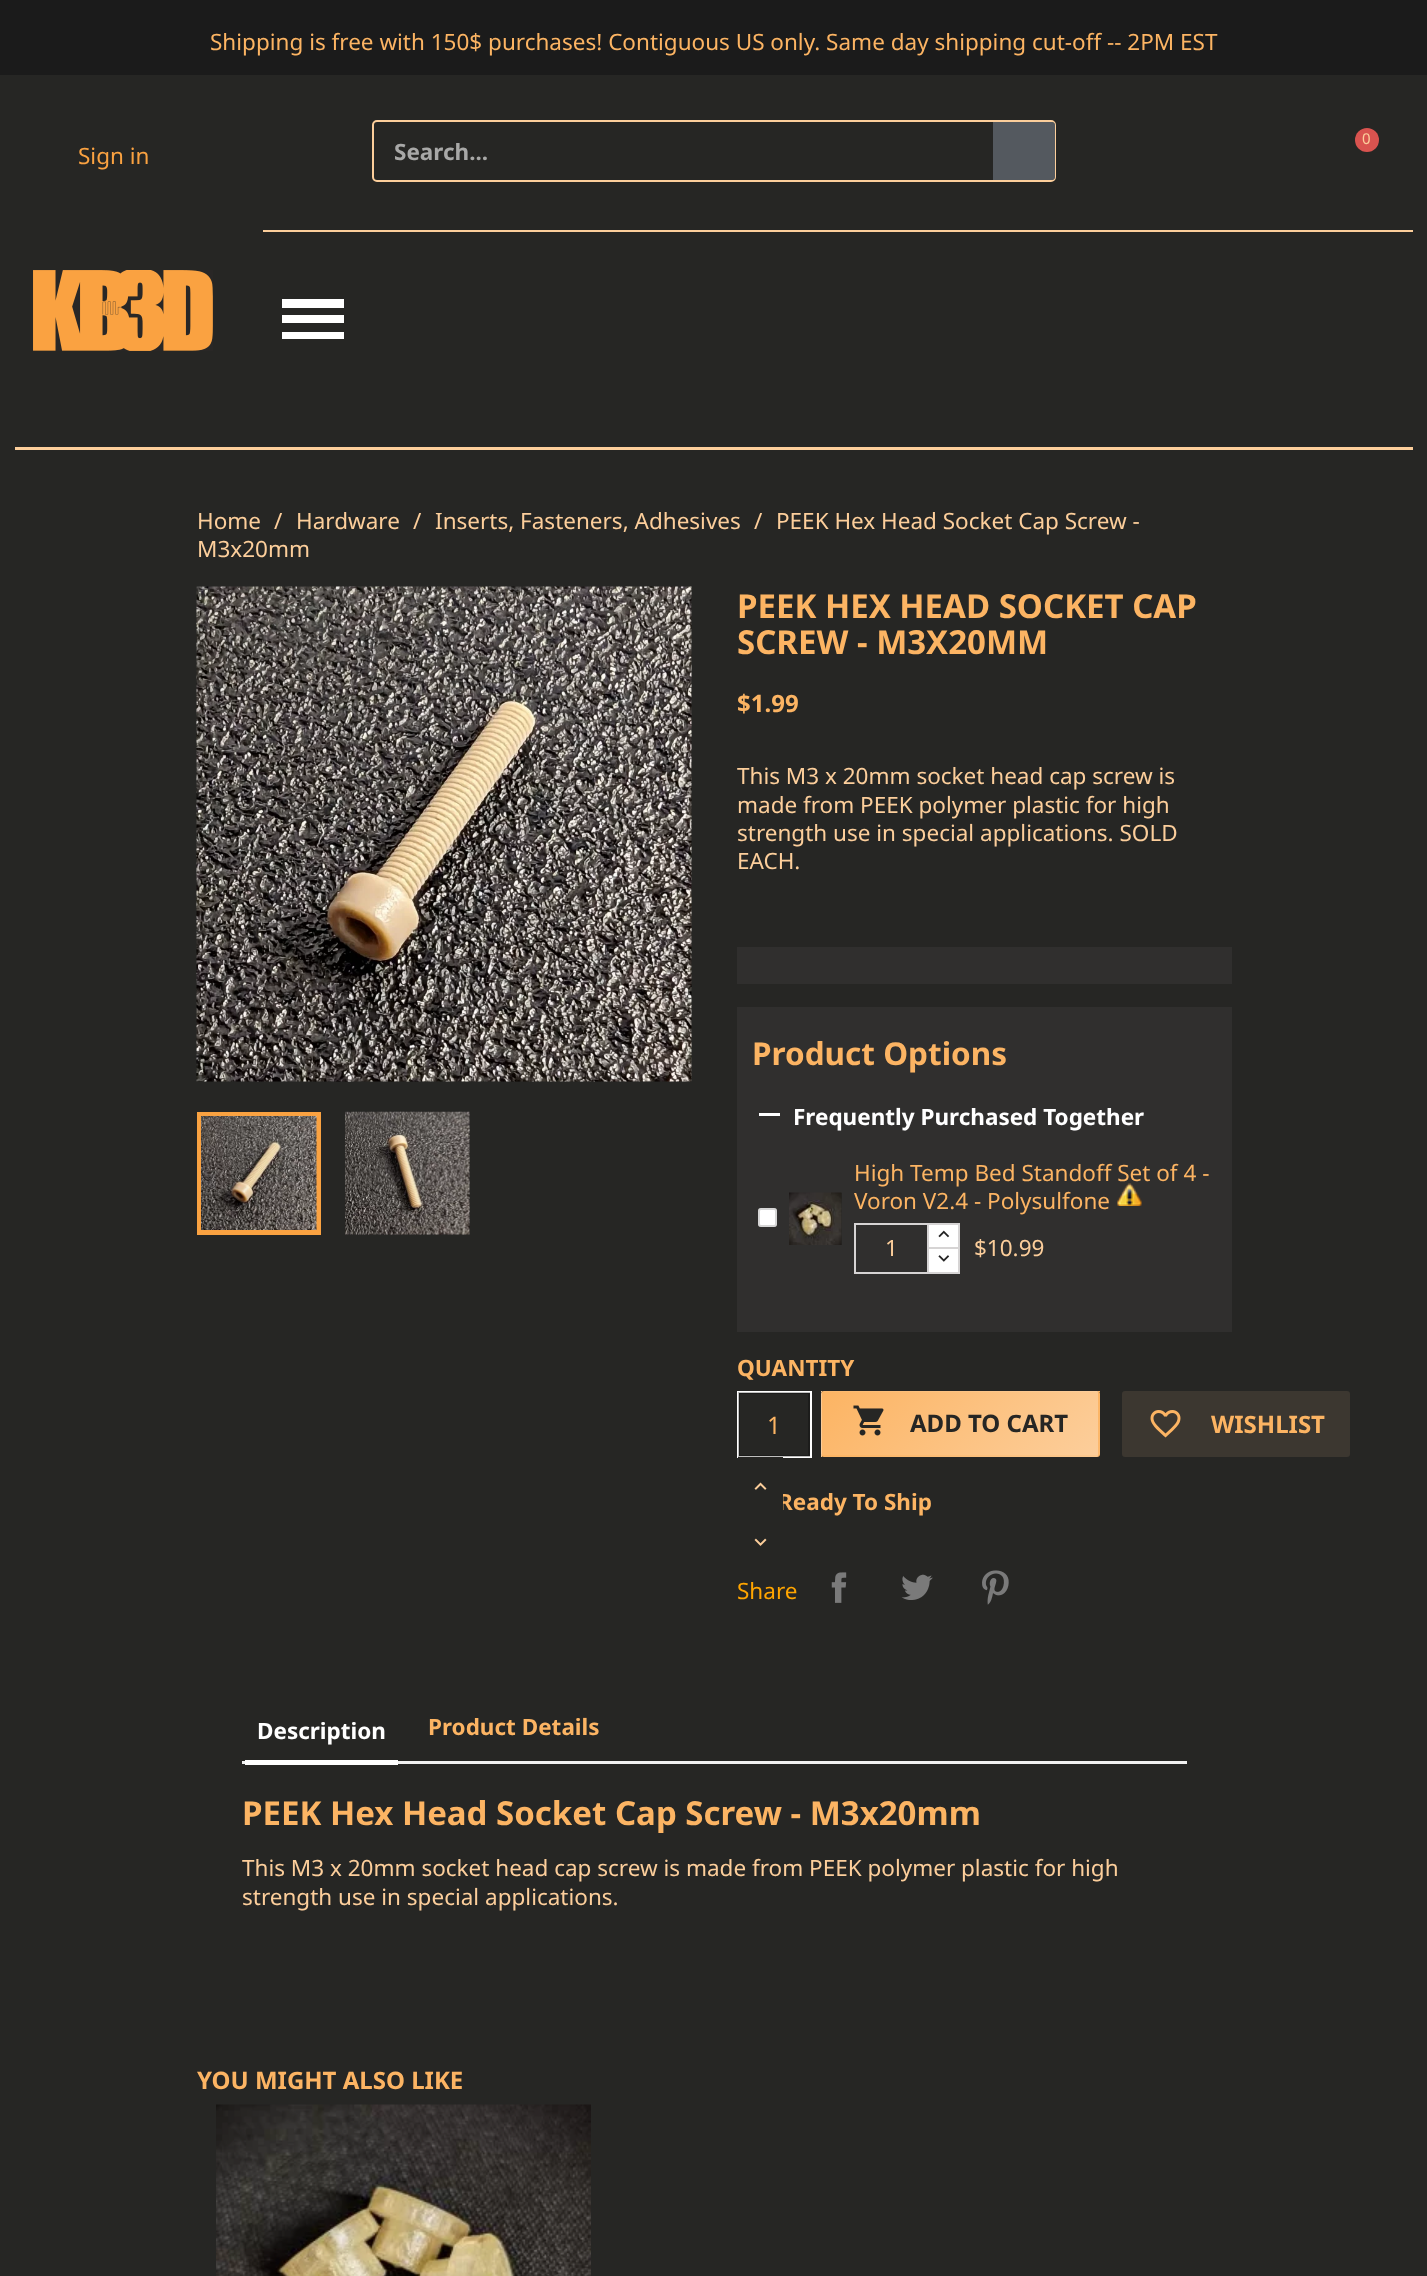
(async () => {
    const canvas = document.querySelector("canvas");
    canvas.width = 1427;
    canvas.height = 2276;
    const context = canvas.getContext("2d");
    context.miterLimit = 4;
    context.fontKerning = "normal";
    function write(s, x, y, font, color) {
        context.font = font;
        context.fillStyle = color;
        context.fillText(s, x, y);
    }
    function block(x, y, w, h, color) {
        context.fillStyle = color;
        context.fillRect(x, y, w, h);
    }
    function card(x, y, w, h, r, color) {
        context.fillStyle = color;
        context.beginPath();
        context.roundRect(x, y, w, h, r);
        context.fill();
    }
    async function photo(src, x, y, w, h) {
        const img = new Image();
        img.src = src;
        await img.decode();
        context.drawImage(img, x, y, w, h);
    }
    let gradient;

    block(0, 0, 1427, 2276, "rgb(38, 38, 36)");
    block(0, 0, 1427, 75, "rgb(27, 27, 27)");
    write("Shipping is free with 150$ purchases! Contiguous US only. Same day shipping cut-off -- 2PM EST", 210, 50, "22.5px Noto Sans", "rgb(252, 180, 99)");
    context.fillStyle = "rgb(217, 83, 79)";
    context.beginPath();
    context.arc(1367, 140, 12, 0, Math.PI * 2);
    context.fill();
    write("0", 1362, 144, "15px Noto Sans", "rgb(252, 206, 155)");
    write("Sign in", 78, 164, "22.5px Noto Sans", "rgb(250, 162, 65)");
    context.beginPath();
    context.roundRect(373, 121, 682, 60, 4);
    context.strokeStyle = "rgb(252, 206, 155)";
    context.lineWidth = 2;
    context.stroke();
    write("Search...", 394, 160, "bold 22.5px Noto Sans", "rgb(168, 168, 167)");
    context.fillStyle = "rgb(84, 89, 95)";
    context.beginPath();
    context.roundRect(993, 122, 62, 58, [0, 3, 3, 0]);
    context.fill();
    block(33, 270, 180, 81, "rgb(41, 39, 38)");
    await photo("media/1.png", 33, 270, 180, 81);
    block(263, 230, 1150, 2, "rgb(252, 206, 155)");
    block(282, 315, 62, 8, "rgb(255, 255, 255)");
    block(282, 299, 62, 9, "rgb(255, 255, 255)");
    block(282, 332, 62, 7, "rgb(255, 255, 255)");
    block(15, 447, 1398, 3, "rgb(252, 206, 155)");
    write("Home", 197, 529, "22.5px Noto Sans", "rgb(252, 206, 155)");
    write("/", 274, 529, "22.5px Noto Sans", "rgb(252, 206, 155)");
    write("Hardware", 296, 529, "22.5px Noto Sans", "rgb(252, 206, 155)");
    write("/", 413, 529, "22.5px Noto Sans", "rgb(252, 206, 155)");
    write("Inserts, Fasteners, Adhesives", 435, 529, "22.5px Noto Sans", "rgb(252, 206, 155)");
    write("/", 754, 529, "22.5px Noto Sans", "rgb(252, 206, 155)");
    write("PEEK Hex Head Socket Cap Screw -", 776, 529, "22.5px Noto Sans", "rgb(252, 206, 155)");
    write("M3x20mm", 197, 557, "22.5px Noto Sans", "rgb(252, 206, 155)");
    await photo("media/2.png", 196, 586, 496, 496);
    context.strokeStyle = "rgb(250, 162, 65)";
    context.lineWidth = 5;
    context.strokeRect(199.5, 1114.5, 119, 118);
    block(345, 1112, 125, 123, "rgb(41, 39, 38)");
    await photo("media/3.png", 345, 1111, 125, 124);
    await photo("media/4.png", 201, 1116, 116, 114);
    write("PEEK HEX HEAD SOCKET CAP", 737, 618, "bold 33px Noto Sans", "rgb(252, 180, 99)");
    write("SCREW - M3X20MM", 737, 654, "bold 33px Noto Sans", "rgb(252, 180, 99)");
    write("$1.99", 737, 712, "bold 24px Noto Sans", "rgb(252, 180, 99)");
    write("This M3 x 20mm socket head cap screw is", 737, 784, "22.5px Noto Sans", "rgb(252, 206, 155)");
    write("made from PEEK polymer plastic for high", 737, 813, "22.5px Noto Sans", "rgb(252, 206, 155)");
    write("strength use in special applications. SOLD", 737, 841, "22.5px Noto Sans", "rgb(252, 206, 155)");
    write("EACH.", 737, 869, "22.5px Noto Sans", "rgb(252, 206, 155)");
    block(737, 947, 495, 37, "rgb(48, 47, 46)");
    block(737, 1007, 495, 325, "rgb(48, 47, 46)");
    write("Product Options", 752, 1065, "bold 31.5px Noto Sans", "rgb(252, 180, 99)");
    block(759, 1113, 21, 3, "rgb(255, 255, 255)");
    write("Frequently Purchased Together", 793, 1125, "bold 22.5px Noto Sans", "rgb(255, 255, 255)");
    card(758, 1208, 19, 19, 3, "rgb(255, 255, 255)");
    context.beginPath();
    context.roundRect(759, 1209, 17, 17, 2);
    context.strokeStyle = "rgba(118, 118, 118, 0.3)";
    context.lineWidth = 2;
    context.stroke();
    block(841, 1193, 1, 52, "rgb(38, 38, 36)");
    await photo("media/5.png", 789, 1192, 53, 53);
    write("High Temp Bed Standoff Set of 4 -", 854, 1181, "22.5px Noto Sans", "rgb(252, 180, 99)");
    write("Voron V2.4 - Polysulfone", 854, 1209, "22.5px Noto Sans", "rgb(252, 180, 99)");
    await photo("media/6.png", 1117, 1183, 25, 23);
    context.strokeStyle = "rgb(214, 212, 212)";
    context.strokeRect(855, 1224, 73, 49);
    write("1", 885, 1256, "22.5px Noto Sans", "rgb(252, 206, 155)");
    block(929, 1225, 29, 22, "rgb(255, 255, 255)");
    context.strokeRect(928, 1224, 31, 25);
    await photo("media/7.png", 938, 1230, 12, 8);
    context.beginPath();
    context.rect(928, 1248, 31, 25);
    context.fill();
    context.stroke();
    await photo("media/8.png", 938, 1255, 12, 7);
    write("$10.99", 974, 1256, "22.5px Noto Sans", "rgb(252, 206, 155)");
    write("QUANTITY", 737, 1376, "bold 22.5px Noto Sans", "rgb(252, 180, 99)");
    context.strokeStyle = "rgb(255, 255, 255)";
    context.strokeRect(738, 1392, 73, 65);
    context.strokeStyle = "rgba(0, 0, 0, 0.25)";
    context.strokeRect(739, 1393, 70, 63);
    write("1", 767, 1434, "24px Noto Sans", "rgb(252, 180, 99)");
    write("Ready To Ship", 778, 1510, "bold 22.5px Noto Sans", "rgb(252, 180, 99)");
    block(738, 1457, 45, 53, "rgb(38, 38, 36)");
    await photo("media/9.png", 754, 1482, 13, 8);
    await photo("media/10.png", 754, 1538, 13, 8);
    gradient = context.createLinearGradient(599, 1276, 769, 1445);
    gradient.addColorStop(0, "rgb(252, 180, 99)");
    gradient.addColorStop(1, "rgb(252, 206, 155)");
    context.fillStyle = gradient;
    context.fillRect(821, 1391, 1, 1);
    context.save();
    context.beginPath();
    context.roundRect(821, 1391, 279, 66, 3);
    context.clip();
    gradient = context.createLinearGradient(875, 1276, 1045, 1445);
    gradient.addColorStop(0, "rgb(252, 180, 99)");
    gradient.addColorStop(1, "rgb(252, 206, 155)");
    context.fillStyle = gradient;
    context.fillRect(822, 1391, 276, 1);
    context.restore();
    gradient = context.createLinearGradient(1151, 1276, 1321, 1445);
    gradient.addColorStop(0, "rgb(252, 180, 99)");
    gradient.addColorStop(1, "rgb(252, 206, 155)");
    context.fillStyle = gradient;
    context.fillRect(1098, 1391, 2, 1);
    context.save();
    context.beginPath();
    context.roundRect(821, 1391, 279, 66, 3);
    context.clip();
    gradient = context.createLinearGradient(599, 1339, 769, 1508);
    gradient.addColorStop(0, "rgb(252, 180, 99)");
    gradient.addColorStop(1, "rgb(252, 206, 155)");
    context.fillStyle = gradient;
    context.fillRect(821, 1392, 1, 63);
    context.restore();
    gradient = context.createLinearGradient(875, 1339, 1045, 1508);
    gradient.addColorStop(0, "rgb(252, 180, 99)");
    gradient.addColorStop(1, "rgb(252, 206, 155)");
    context.fillStyle = gradient;
    context.fillRect(822, 1392, 276, 63);
    context.save();
    context.beginPath();
    context.roundRect(821, 1391, 279, 66, 3);
    context.clip();
    gradient = context.createLinearGradient(1151, 1339, 1321, 1508);
    gradient.addColorStop(0, "rgb(252, 180, 99)");
    gradient.addColorStop(1, "rgb(252, 206, 155)");
    context.fillStyle = gradient;
    context.fillRect(1098, 1392, 2, 63);
    context.restore();
    gradient = context.createLinearGradient(599, 1402, 769, 1571);
    gradient.addColorStop(0, "rgb(252, 180, 99)");
    gradient.addColorStop(1, "rgb(252, 206, 155)");
    context.fillStyle = gradient;
    context.fillRect(821, 1455, 1, 2);
    context.save();
    context.beginPath();
    context.roundRect(821, 1391, 279, 66, 3);
    context.clip();
    gradient = context.createLinearGradient(875, 1402, 1045, 1571);
    gradient.addColorStop(0, "rgb(252, 180, 99)");
    gradient.addColorStop(1, "rgb(252, 206, 155)");
    context.fillStyle = gradient;
    context.fillRect(822, 1455, 276, 2);
    gradient = context.createLinearGradient(1151, 1402, 1321, 1571);
    gradient.addColorStop(0, "rgb(252, 180, 99)");
    gradient.addColorStop(1, "rgb(252, 206, 155)");
    context.fillStyle = gradient;
    context.fillRect(1098, 1455, 2, 2);
    context.restore();
    await photo("media/11.png", 853, 1405, 31, 31);
    write("ADD TO CART", 910, 1432, "bold 24px Noto Sans", "rgb(38, 38, 36)");
    card(1122, 1391, 228, 66, 3, "rgba(252, 206, 155, 0.1)");
    await photo("media/12.png", 1150, 1410, 31, 28);
    write("WISHLIST", 1211, 1433, "bold 24px Noto Sans", "rgb(252, 180, 99)");
    write("Share", 737, 1599, "22.5px Noto Sans", "rgb(255, 165, 0)");
    await photo("media/13.png", 831, 1572, 16, 31);
    await photo("media/14.png", 901, 1574, 32, 26);
    await photo("media/15.png", 982, 1570, 27, 35);
    block(242, 1761, 945, 3, "rgb(241, 241, 241)");
    block(245, 1760, 153, 5, "rgb(255, 255, 255)");
    write("Description", 257, 1739, "bold 22.5px Noto Sans", "rgb(255, 255, 255)");
    write("Product Details", 428, 1735, "bold 22.5px Noto Sans", "rgb(252, 180, 99)");
    write("PEEK Hex Head Socket Cap Screw - M3x20mm", 242, 1825, "bold 33px Noto Sans", "rgb(252, 180, 99)");
    write("This M3 x 20mm socket head cap screw is made from PEEK polymer plastic for high", 242, 1876, "22.5px Noto Sans", "rgb(252, 206, 155)");
    write("strength use in special applications.", 242, 1905, "22.5px Noto Sans", "rgb(252, 206, 155)");
    write("YOU MIGHT ALSO LIKE", 197, 2089, "bold 24px Noto Sans", "rgb(252, 180, 99)");
    await photo("media/16.png", 216, 2104, 375, 172);
})();
